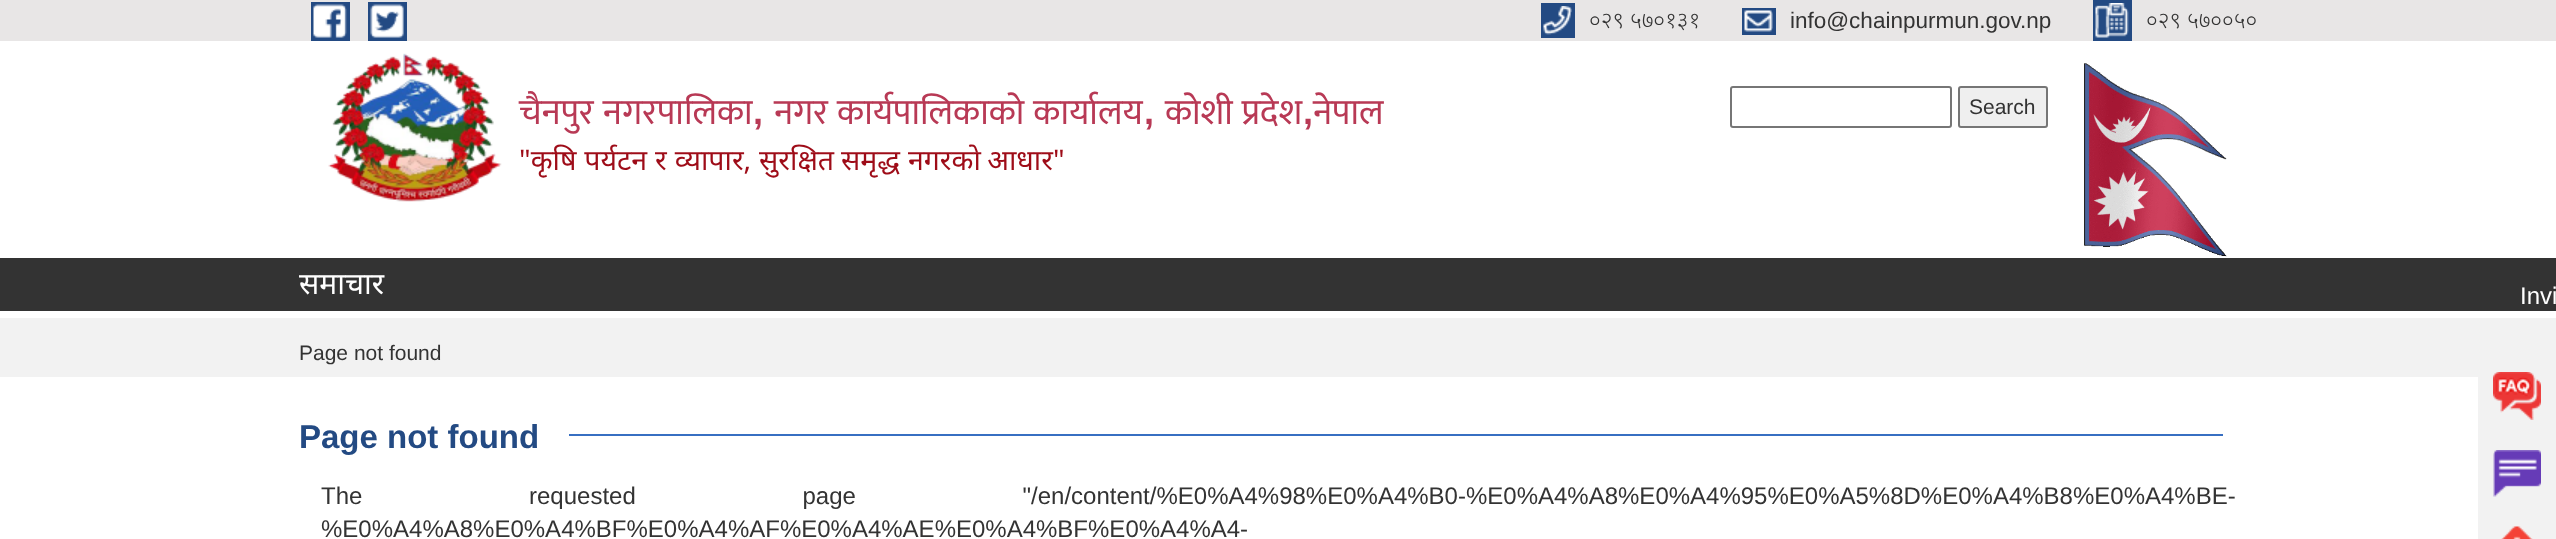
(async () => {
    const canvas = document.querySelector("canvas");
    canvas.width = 2556;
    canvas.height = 539;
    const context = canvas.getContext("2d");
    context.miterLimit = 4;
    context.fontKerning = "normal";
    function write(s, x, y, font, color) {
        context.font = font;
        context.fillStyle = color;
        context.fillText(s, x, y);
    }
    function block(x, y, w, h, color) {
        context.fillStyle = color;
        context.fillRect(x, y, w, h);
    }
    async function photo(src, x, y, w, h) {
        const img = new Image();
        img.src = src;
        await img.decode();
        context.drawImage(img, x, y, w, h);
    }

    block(0, 0, 2556, 539, "rgb(255, 255, 255)");
    block(0, 0, 2556, 41, "rgb(232, 230, 230)");
    block(311, 2, 39, 39, "rgb(35, 74, 131)");
    block(368, 2, 39, 39, "rgb(35, 74, 131)");
    await photo("media/1.png", 313, 4, 34, 34);
    await photo("media/2.png", 370, 4, 34, 34);
    block(1541, 3, 34, 35, "rgb(35, 74, 131)");
    await photo("media/3.png", 1543, 6, 29, 29);
    write("०२९ ५७०१३१", 1589, 28, "300 22.5px Noto Sans", "rgb(51, 51, 51)");
    block(1742, 8, 34, 27, "rgb(35, 74, 131)");
    await photo("media/4.png", 1744, 10, 29, 22);
    write("info@chainpurmun.gov.np", 1790, 28, "22.5px Liberation Sans", "rgb(51, 51, 51)");
    block(2093, 0, 39, 41, "rgb(35, 74, 131)");
    await photo("media/5.png", 2095, 3, 34, 35);
    write("०२९ ५७००५०", 2146, 28, "300 22.5px Noto Sans", "rgb(51, 51, 51)");
    await photo("media/6.png", 328, 53, 174, 149);
    context.wordSpacing = "1px";
    write("चैनपुर नगरपालिका", 519, 124, "36px Mukta", "rgb(184, 57, 85)");
    context.wordSpacing = "0px";
    write(",", 753, 124, "bold 36px Liberation Sans", "rgb(184, 57, 85)");
    context.wordSpacing = "1px";
    write("नगर कार्यपालिकाको कार्यालय", 774, 124, "36px Mukta", "rgb(184, 57, 85)");
    context.wordSpacing = "0px";
    write(",", 1144, 124, "bold 36px Liberation Sans", "rgb(184, 57, 85)");
    context.wordSpacing = "1px";
    write("कोशी प्रदेश", 1165, 124, "36px Mukta", "rgb(184, 57, 85)");
    context.wordSpacing = "0px";
    write(",", 1303, 124, "bold 36px Liberation Sans", "rgb(184, 57, 85)");
    write("नेपाल", 1313, 124, "36px Mukta", "rgb(184, 57, 85)");
    context.wordSpacing = "0.5px";
    write("\"कृषि पर्यटन र व्यापार, सुरक्षित", 519, 170, "28.5px Noto Sans", "rgb(158, 12, 24)");
    context.wordSpacing = "0px";
    write("समृद्ध", 841, 170, "28.5px Noto Sans", "rgb(158, 12, 24)");
    context.wordSpacing = "-1px";
    write("नगरकाे आधार\"", 908, 170, "28.5px Noto Sans", "rgb(158, 12, 24)");
    context.beginPath();
    context.roundRect(1731, 87, 220, 40, 2);
    context.strokeStyle = "rgb(118, 118, 118)";
    context.lineWidth = 2;
    context.stroke();
    context.fillStyle = "rgb(239, 239, 239)";
    context.beginPath();
    context.roundRect(1959, 87, 88, 40, 2);
    context.fill();
    context.stroke();
    context.wordSpacing = "0px";
    write("Search", 1969, 114, "21px Liberation Sans", "rgb(51, 51, 51)");
    await photo("media/7.png", 2084, 63, 143, 194);
    block(0, 258, 2556, 53, "rgb(51, 51, 51)");
    write("समाचार", 299, 294, "30px Noto Sans", "rgb(255, 255, 255)");
    write("Invi", 2520, 304, "24px Liberation Sans", "rgb(255, 255, 255)");
    block(0, 318, 2556, 59, "rgb(242, 242, 242)");
    write("Page not found", 299, 360, "21px Liberation Sans", "rgb(51, 51, 51)");
    write("Page not found", 299, 448, "bold 33px Liberation Sans", "rgb(35, 74, 131)");
    block(569, 434, 1654, 2, "rgb(55, 111, 194)");
    context.wordSpacing = "160px";
    write("The requested page \"/en/content/%E0%A4%98%E0%A4%B0-%E0%A4%A8%E0%A4%95%E0%A5%8D%E0%A4%B8%E0%A4%BE-", 321, 504, "24px Liberation Sans", "rgb(51, 51, 51)");
    context.wordSpacing = "0px";
    write("%E0%A4%A8%E0%A4%BF%E0%A4%AF%E0%A4%AE%E0%A4%BF%E0%A4%A4-", 321, 537, "24px Liberation Sans", "rgb(51, 51, 51)");
    block(2478, 377, 78, 162, "rgb(242, 242, 242)");
    await photo("media/8.png", 2493, 372, 48, 48);
    await photo("media/9.png", 2493, 450, 48, 47);
    await photo("media/10.png", 2501, 526, 32, 13);
})();
